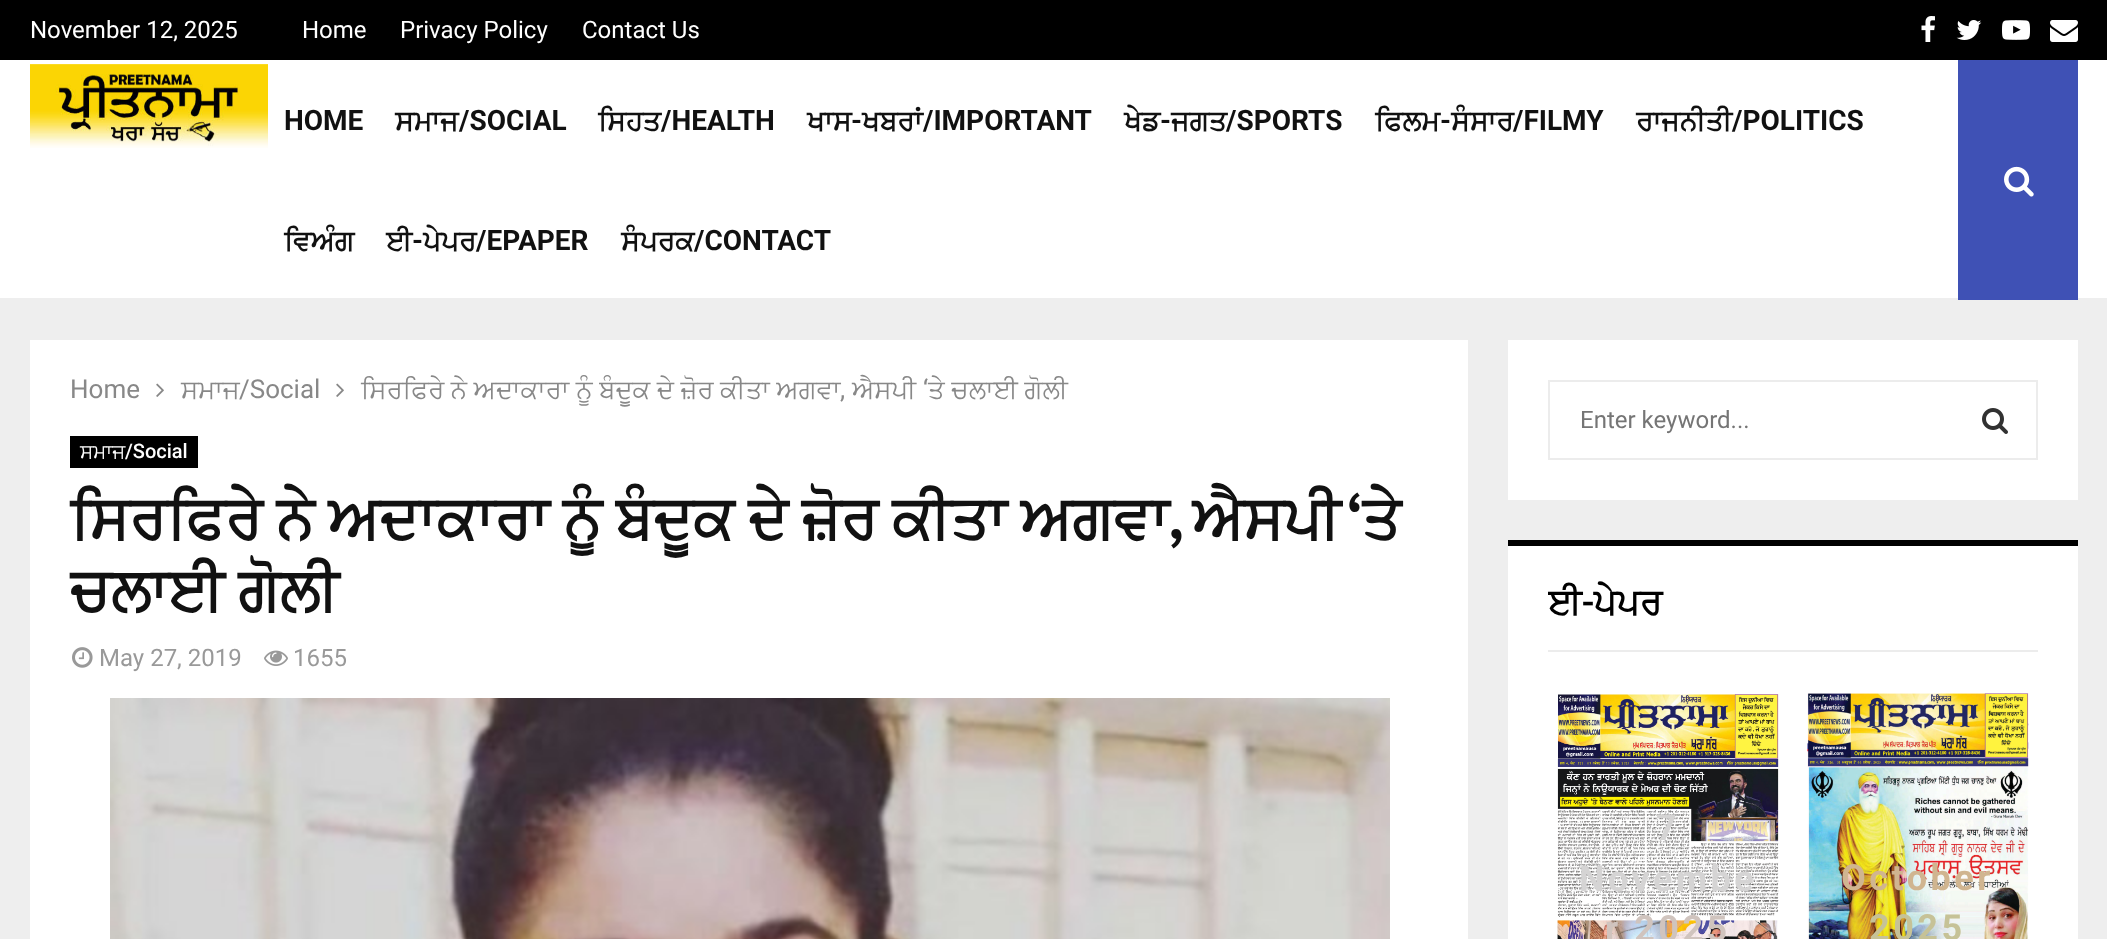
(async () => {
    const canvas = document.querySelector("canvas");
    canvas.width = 2107;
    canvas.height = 939;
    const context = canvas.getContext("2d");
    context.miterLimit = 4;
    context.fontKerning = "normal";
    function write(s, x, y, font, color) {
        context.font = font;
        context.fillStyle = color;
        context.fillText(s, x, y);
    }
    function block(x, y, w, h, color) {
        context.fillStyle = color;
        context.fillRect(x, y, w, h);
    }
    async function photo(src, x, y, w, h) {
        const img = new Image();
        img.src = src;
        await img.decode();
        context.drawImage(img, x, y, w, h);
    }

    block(0, 0, 2107, 939, "rgb(238, 238, 238)");
    block(0, 0, 2107, 60, "rgb(0, 0, 0)");
    write("November 12, 2025", 30, 38, "24px Roboto", "rgb(255, 255, 255)");
    write("Home", 302, 38, "24px Roboto", "rgb(255, 255, 255)");
    write("Privacy Policy", 400, 38, "24px Roboto", "rgb(255, 255, 255)");
    write("Contact Us", 582, 38, "24px Roboto", "rgb(255, 255, 255)");
    await photo("media/1.png", 1921, 16, 14, 26);
    await photo("media/2.png", 1956, 20, 26, 20);
    await photo("media/3.png", 2002, 20, 28, 20);
    await photo("media/4.png", 2050, 20, 28, 22);
    block(0, 60, 2107, 238, "rgb(255, 255, 255)");
    await photo("media/5.png", 30, 64, 238, 84);
    write("HOME", 284, 130, "bold 28px Roboto", "rgb(17, 17, 17)");
    write("ਸਮਾਜ", 395, 130, "bold 28px FreeSans", "rgb(17, 17, 17)");
    write("/SOCIAL", 459, 130, "bold 28px Roboto", "rgb(17, 17, 17)");
    write("ਸਿਹਤ", 598, 130, "bold 28px FreeSans", "rgb(17, 17, 17)");
    write("/HEALTH", 661, 130, "bold 28px Roboto", "rgb(17, 17, 17)");
    write("ਖਾਸ", 807, 130, "bold 28px FreeSans", "rgb(17, 17, 17)");
    write("-", 851, 130, "bold 28px Roboto", "rgb(17, 17, 17)");
    write("ਖਬਰਾਂ", 862, 130, "bold 28px FreeSans", "rgb(17, 17, 17)");
    write("/IMPORTANT", 923, 130, "bold 28px Roboto", "rgb(17, 17, 17)");
    write("ਖੇਡ", 1124, 130, "bold 28px FreeSans", "rgb(17, 17, 17)");
    write("-", 1160, 130, "bold 28px Roboto", "rgb(17, 17, 17)");
    write("ਜਗਤ", 1171, 130, "bold 28px FreeSans", "rgb(17, 17, 17)");
    write("/SPORTS", 1226, 130, "bold 28px Roboto", "rgb(17, 17, 17)");
    write("ਫਿਲਮ", 1375, 130, "bold 28px FreeSans", "rgb(17, 17, 17)");
    write("-", 1440, 130, "bold 28px Roboto", "rgb(17, 17, 17)");
    write("ਸੰਸਾਰ", 1451, 130, "bold 28px FreeSans", "rgb(17, 17, 17)");
    write("/FILMY", 1513, 130, "bold 28px Roboto", "rgb(17, 17, 17)");
    write("ਰਾਜਨੀਤੀ", 1636, 130, "bold 28px FreeSans", "rgb(17, 17, 17)");
    write("/POLITICS", 1732, 130, "bold 28px Roboto", "rgb(17, 17, 17)");
    write("ਵਿਅੰਗ", 284, 250, "bold 28px FreeSans", "rgb(17, 17, 17)");
    write("ਈ", 386, 250, "bold 28px FreeSans", "rgb(17, 17, 17)");
    write("-", 412, 250, "bold 28px Roboto", "rgb(17, 17, 17)");
    write("ਪੇਪਰ", 423, 250, "bold 28px FreeSans", "rgb(17, 17, 17)");
    write("/EPAPER", 476, 250, "bold 28px Roboto", "rgb(17, 17, 17)");
    write("ਸੰਪਰਕ", 621, 250, "bold 28px FreeSans", "rgb(17, 17, 17)");
    write("/CONTACT", 694, 250, "bold 28px Roboto", "rgb(17, 17, 17)");
    block(1958, 60, 120, 240, "rgb(63, 81, 181)");
    await photo("media/6.png", 2004, 166, 30, 31);
    block(30, 340, 1438, 599, "rgb(255, 255, 255)");
    write("Home", 70, 398, "26px Roboto", "rgb(136, 136, 136)");
    await photo("media/7.png", 156, 383, 8, 14);
    write("ਸਮਾਜ", 181, 398, "26px FreeSans", "rgb(136, 136, 136)");
    write("/Social", 239, 398, "26px Roboto", "rgb(136, 136, 136)");
    write("ਸਿਰਫਿਰੇ ਨੇ ਅਦਾਕਾਰਾ ਨੂੰ ਬੰਦੂਕ ਦੇ ਜ਼ੋਰ ਕੀਤਾ ਅਗਵਾ", 361, 398, "26px FreeSans", "rgb(136, 136, 136)");
    write("ਐਸਪੀ", 852, 398, "26px FreeSans", "rgb(136, 136, 136)");
    write("‘", 923, 398, "26px Roboto", "rgb(136, 136, 136)");
    write("ਤੇ ਚਲਾਈ ਗੋਲੀ", 928, 398, "26px FreeSans", "rgb(136, 136, 136)");
    await photo("media/7.png", 336, 383, 8, 14);
    write(",", 840, 398, "26px Roboto", "rgb(136, 136, 136)");
    block(70, 436, 128, 32, "rgb(0, 0, 0)");
    write("ਸਮਾਜ", 80, 458, "20px FreeSans", "rgb(255, 255, 255)");
    write("/Social", 125, 458, "500 20px Roboto", "rgb(255, 255, 255)");
    context.wordSpacing = "-1px";
    write("ਸਿਰਫਿਰੇ ਨੇ ਅਦਾਕਾਰਾ ਨੂੰ ਬੰਦੂਕ ਦੇ ਜ਼ੋਰ ਕੀਤਾ ਅਗਵਾ", 70, 538, "bold 60px FreeSans", "rgb(17, 17, 17)");
    context.wordSpacing = "0px";
    write("ਐਸਪੀ", 1192, 538, "bold 60px FreeSans", "rgb(17, 17, 17)");
    write("‘", 1348, 538, "bold 60px Mukta Vaani", "rgb(17, 17, 17)");
    write("ਤੇ", 1362, 538, "bold 60px FreeSans", "rgb(17, 17, 17)");
    write(",", 1169, 538, "bold 60px Mukta Vaani", "rgb(17, 17, 17)");
    context.wordSpacing = "-1px";
    write("ਚਲਾਈ ਗੋਲੀ", 70, 610, "bold 60px FreeSans", "rgb(17, 17, 17)");
    await photo("media/8.png", 72, 647, 21, 21);
    context.wordSpacing = "0px";
    write("May 27, 2019", 99, 666, "24px Roboto", "rgb(153, 153, 153)");
    await photo("media/9.png", 264, 650, 24, 16);
    write("1655", 293, 666, "24px Roboto", "rgb(153, 153, 153)");
    await photo("media/10.png", 110, 698, 1280, 241);
    block(1508, 340, 570, 160, "rgb(255, 255, 255)");
    context.strokeStyle = "rgb(236, 236, 236)";
    context.lineWidth = 2;
    context.strokeRect(1549, 381, 488, 78);
    write("Enter keyword...", 1580, 428, "24px Roboto", "rgb(117, 117, 117)");
    await photo("media/11.png", 1982, 408, 26, 26);
    block(1508, 546, 570, 393, "rgb(255, 255, 255)");
    block(1548, 650, 490, 2, "rgb(236, 236, 236)");
    block(1508, 540, 570, 6, "rgb(0, 0, 0)");
    context.save();
    context.beginPath();
    context.rect(1548, 540, 490, 110);
    context.clip();
    write("ਈ-ਪੇਪਰ", 1548, 614, "bold 36px FreeSans", "rgb(0, 0, 0)");
    context.restore();
    await photo("media/12.png", 1557, 694, 222, 245);
    context.letterSpacing = "3.5px";
    write("7", 1656, 840, "bold 36px Roboto", "rgb(213, 212, 212)");
    write("Novembe", 1579, 891, "bold 36px Roboto", "rgb(213, 212, 212)");
    write("r 2025", 1605, 941, "bold 36px Roboto", "rgb(208, 196, 190)");
    await photo("media/13.png", 1807, 693, 222, 246);
    write("October", 1841, 890, "bold 36px Roboto", "rgb(208, 181, 144)");
    write("2025", 1869, 940, "bold 36px Roboto", "rgb(198, 194, 151)");
})();
